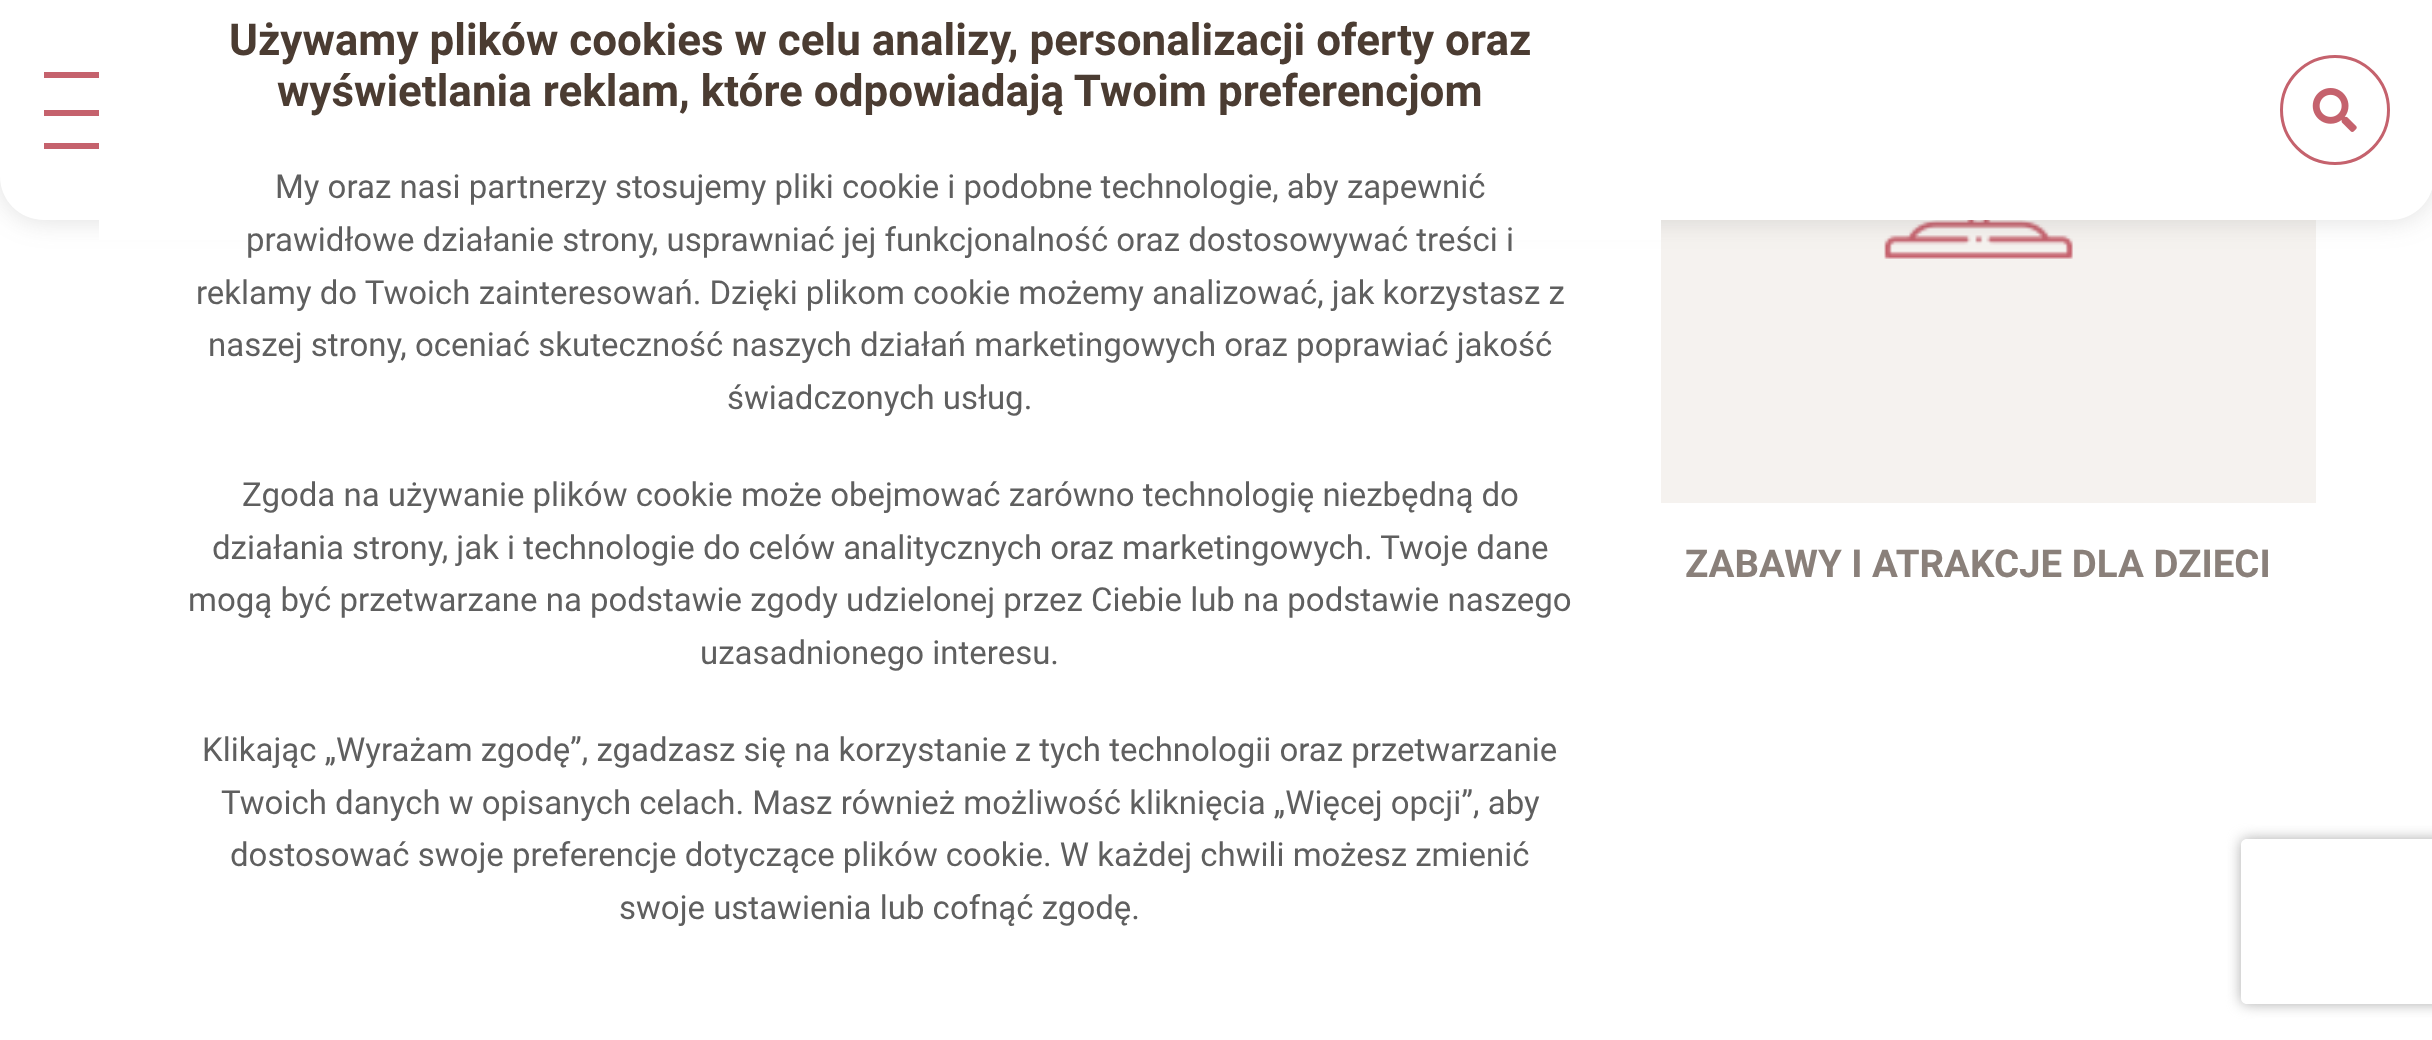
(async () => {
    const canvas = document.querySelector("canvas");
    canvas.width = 2432;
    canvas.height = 1040;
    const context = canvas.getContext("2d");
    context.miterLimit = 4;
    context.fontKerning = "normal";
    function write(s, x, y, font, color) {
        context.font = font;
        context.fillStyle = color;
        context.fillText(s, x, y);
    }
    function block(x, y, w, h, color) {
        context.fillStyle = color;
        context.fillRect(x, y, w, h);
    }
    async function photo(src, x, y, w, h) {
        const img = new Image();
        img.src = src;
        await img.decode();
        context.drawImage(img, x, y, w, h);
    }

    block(0, 0, 2432, 1040, "rgb(255, 255, 255)");
    block(1661, 220, 655, 283, "rgb(245, 242, 239)");
    await photo("media/2.png", 1884, 220, 189, 39);
    context.fillStyle = "rgba(89, 89, 89, 0.2)";
    context.filter = "blur(14px)";
    context.beginPath();
    context.roundRect(0, 0, 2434, 220, 44);
    context.fill();
    context.filter = "none";
    context.fillStyle = "rgb(255, 255, 255)";
    context.beginPath();
    context.moveTo(0, 0);
    context.lineTo(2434, 0);
    context.lineTo(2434, 176);
    context.bezierCurveTo(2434, 200.5, 2414.5, 220, 2390, 220);
    context.lineTo(44, 220);
    context.bezierCurveTo(19.5, 220, 0, 200.5, 0, 176);
    context.closePath();
    context.fill();
    block(44, 72, 55, 6, "rgb(197, 98, 109)");
    block(44, 110, 55, 6, "rgb(197, 98, 109)");
    block(44, 143, 55, 6, "rgb(197, 98, 109)");
    context.beginPath();
    context.arc(2335, 110, 53.5, 0, Math.PI * 2);
    context.strokeStyle = "rgb(197, 98, 109)";
    context.lineWidth = 3;
    context.stroke();
    await photo("media/1.png", 2312, 88, 45, 44);
    block(99, 220, 1562, 20, "rgb(255, 255, 255)");
    write("Używamy plików cookies w celu analizy, personalizacji oferty oraz", 229, 55, "bold 44px Roboto", "rgb(75, 60, 50)");
    write("wyświetlania reklam, które odpowiadają Twoim preferencjom", 277, 106, "bold 44px Roboto", "rgb(75, 60, 50)");
    write("My oraz nasi partnerzy stosujemy pliki cookie i podobne technologie, aby zapewnić", 275, 198, "33px Roboto", "rgb(95, 95, 95)");
    write("prawidłowe działanie strony, usprawniać jej funkcjonalność oraz dostosowywać treści i", 246, 251, "33px Roboto", "rgb(95, 95, 95)");
    write("reklamy do Twoich zainteresowań. Dzięki plikom cookie możemy analizować, jak korzystasz z", 196, 304, "33px Roboto", "rgb(95, 95, 95)");
    write("naszej strony, oceniać skuteczność naszych działań marketingowych oraz poprawiać jakość", 208, 356, "33px Roboto", "rgb(95, 95, 95)");
    write("świadczonych usług.", 727, 409, "33px Roboto", "rgb(95, 95, 95)");
    write("Zgoda na używanie plików cookie może obejmować zarówno technologię niezbędną do", 242, 506, "33px Roboto", "rgb(95, 95, 95)");
    write("działania strony, jak i technologie do celów analitycznych oraz marketingowych. Twoje dane", 212, 559, "33px Roboto", "rgb(95, 95, 95)");
    write("mogą być przetwarzane na podstawie zgody udzielonej przez Ciebie lub na podstawie naszego", 188, 611, "33px Roboto", "rgb(95, 95, 95)");
    write("uzasadnionego interesu.", 700, 664, "33px Roboto", "rgb(95, 95, 95)");
    write("Klikając „Wyrażam zgodę”, zgadzasz się na korzystanie z tych technologii oraz przetwarzanie", 202, 761, "33px Roboto", "rgb(95, 95, 95)");
    write("Twoich danych w opisanych celach. Masz również możliwość kliknięcia „Więcej opcji”, aby", 221, 814, "33px Roboto", "rgb(95, 95, 95)");
    write("dostosować swoje preferencje dotyczące plików cookie. W każdej chwili możesz zmienić", 230, 866, "33px Roboto", "rgb(95, 95, 95)");
    write("swoje ustawienia lub cofnąć zgodę.", 619, 919, "33px Roboto", "rgb(95, 95, 95)");
    write("ZABAWY I ATRAKCJE DLA DZIECI", 1685, 577, "bold 38.5px Roboto", "rgb(138, 128, 122)");
    context.save();
    context.beginPath();
    context.moveTo(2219, 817);
    context.lineTo(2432, 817);
    context.lineTo(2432, 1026);
    context.lineTo(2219, 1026);
    context.closePath();
    context.moveTo(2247, 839);
    context.lineTo(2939, 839);
    context.bezierCurveTo(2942.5, 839, 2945, 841.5, 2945, 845);
    context.lineTo(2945, 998);
    context.bezierCurveTo(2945, 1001.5, 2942.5, 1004, 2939, 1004);
    context.lineTo(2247, 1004);
    context.bezierCurveTo(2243.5, 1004, 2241, 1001.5, 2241, 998);
    context.lineTo(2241, 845);
    context.bezierCurveTo(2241, 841.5, 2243.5, 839, 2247, 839);
    context.closePath();
    context.clip("evenodd");
    context.fillStyle = "rgb(172, 172, 172)";
    context.filter = "blur(7px)";
    context.beginPath();
    context.roundRect(2241, 839, 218, 165, 6);
    context.fill();
    context.filter = "none";
    context.restore();
})();
